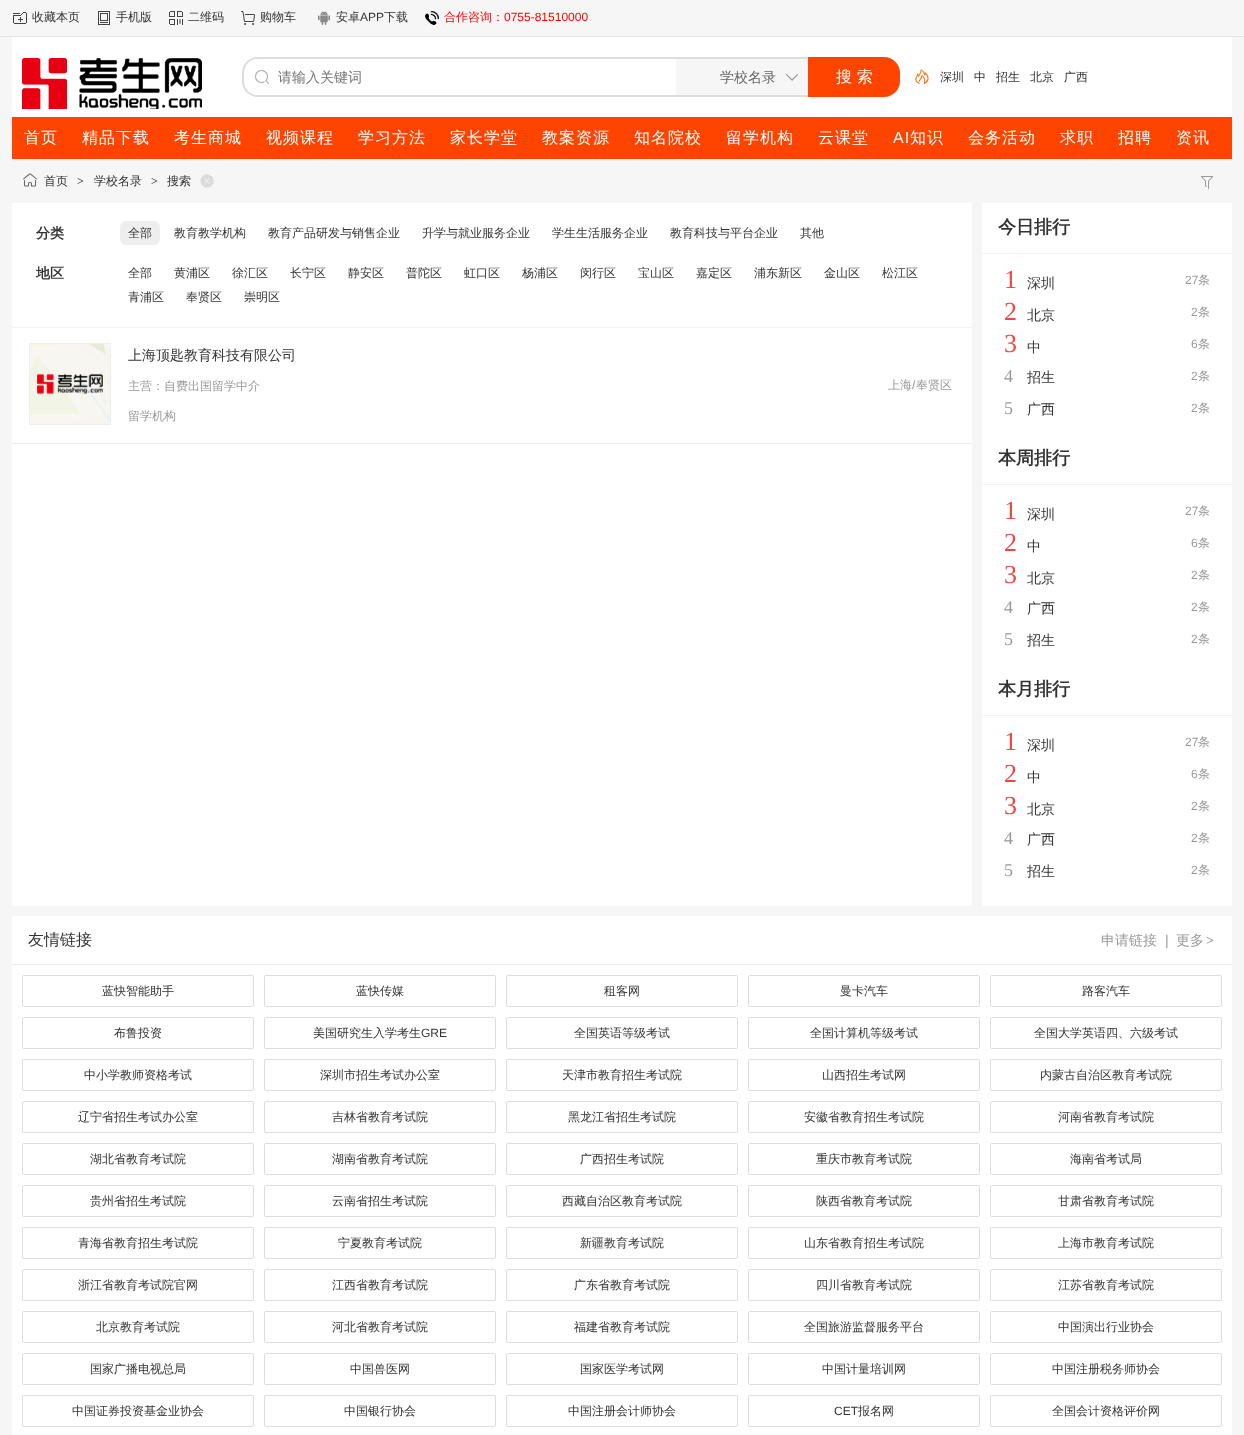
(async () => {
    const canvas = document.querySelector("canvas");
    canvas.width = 1244;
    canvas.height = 1435;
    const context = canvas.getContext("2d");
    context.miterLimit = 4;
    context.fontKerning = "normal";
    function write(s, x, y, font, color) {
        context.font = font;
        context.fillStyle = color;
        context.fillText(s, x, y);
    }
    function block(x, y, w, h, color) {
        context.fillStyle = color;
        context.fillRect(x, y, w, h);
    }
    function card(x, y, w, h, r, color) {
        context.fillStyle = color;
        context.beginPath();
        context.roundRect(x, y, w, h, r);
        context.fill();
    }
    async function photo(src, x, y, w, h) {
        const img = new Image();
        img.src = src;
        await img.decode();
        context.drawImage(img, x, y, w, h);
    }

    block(0, 0, 1244, 1435, "rgb(246, 246, 246)");
    block(0, 36, 1244, 1, "rgb(229, 229, 229)");
    await photo("media/1.png", 13, 12, 14, 12);
    write("收藏本页", 32, 21, "500 12px WenQuanYi Zen Hei", "rgb(51, 51, 51)");
    await photo("media/2.png", 98, 11, 12, 14);
    write("手机版", 116, 21, "500 12px WenQuanYi Zen Hei", "rgb(51, 51, 51)");
    await photo("media/3.png", 169, 11, 14, 14);
    write("二维码", 188, 21, "500 12px WenQuanYi Zen Hei", "rgb(51, 51, 51)");
    await photo("media/4.png", 241, 11, 14, 14);
    write("购物车", 260, 21, "500 12px WenQuanYi Zen Hei", "rgb(51, 51, 51)");
    await photo("media/5.png", 318, 11, 12, 14);
    write("安卓", 336, 21, "500 12px WenQuanYi Zen Hei", "rgb(51, 51, 51)");
    write("APP", 360, 21, "12px Liberation Sans", "rgb(51, 51, 51)");
    write("下载", 384, 21, "500 12px WenQuanYi Zen Hei", "rgb(51, 51, 51)");
    await photo("media/6.png", 425, 11, 14, 14);
    write("合作咨询：", 444, 21, "500 12px WenQuanYi Zen Hei", "rgb(255, 0, 0)");
    write("0755-81510000", 504, 21, "12px Liberation Sans", "rgb(255, 0, 0)");
    block(12, 37, 1220, 80, "rgb(255, 255, 255)");
    await photo("media/7.png", 22, 58, 180, 51);
    context.fillStyle = "rgb(221, 221, 221)";
    context.beginPath();
    context.moveTo(258, 57);
    context.lineTo(676, 57);
    context.lineTo(676, 97);
    context.lineTo(258, 97);
    context.bezierCurveTo(249, 97, 242, 90, 242, 81);
    context.lineTo(242, 73);
    context.bezierCurveTo(242, 64, 249, 57, 258, 57);
    context.closePath();
    context.moveTo(258, 59);
    context.lineTo(676, 59);
    context.lineTo(676, 95);
    context.lineTo(258, 95);
    context.bezierCurveTo(250, 95, 244, 89, 244, 81);
    context.lineTo(244, 73);
    context.bezierCurveTo(244, 65, 250, 59, 258, 59);
    context.closePath();
    context.fill("evenodd");
    block(254, 59, 3, 36, "rgb(255, 255, 255)");
    await photo("media/8.png", 255, 70, 14, 14);
    write("请输入关键词", 278, 82, "500 14px WenQuanYi Zen Hei", "rgb(117, 117, 117)");
    block(676, 59, 132, 36, "rgb(246, 246, 246)");
    block(676, 57, 132, 2, "rgb(221, 221, 221)");
    block(676, 95, 132, 2, "rgb(221, 221, 221)");
    await photo("media/9.png", 786, 74, 12, 7);
    write("学校名录", 720, 82, "500 14px WenQuanYi Zen Hei", "rgb(102, 102, 102)");
    context.fillStyle = "rgb(255, 68, 0)";
    context.beginPath();
    context.roundRect(809, 58, 90, 38, [0, 15, 15, 0]);
    context.fill();
    context.strokeStyle = "rgb(255, 68, 0)";
    context.lineWidth = 2;
    context.stroke();
    write("搜 索", 836, 82, "500 16px WenQuanYi Zen Hei", "rgb(255, 255, 255)");
    await photo("media/10.png", 915, 69, 14, 15);
    write("深圳", 940, 81, "500 12px WenQuanYi Zen Hei", "rgb(51, 51, 51)");
    write("中", 974, 81, "500 12px WenQuanYi Zen Hei", "rgb(51, 51, 51)");
    write("招生", 996, 81, "500 12px WenQuanYi Zen Hei", "rgb(51, 51, 51)");
    write("北京", 1030, 81, "500 12px WenQuanYi Zen Hei", "rgb(51, 51, 51)");
    write("广西", 1064, 81, "500 12px WenQuanYi Zen Hei", "rgb(51, 51, 51)");
    block(12, 117, 1220, 42, "rgb(255, 68, 0)");
    context.letterSpacing = "1px";
    write("首页", 24, 143, "500 16px WenQuanYi Zen Hei", "rgb(255, 255, 255)");
    write("精品下载", 82, 143, "500 16px WenQuanYi Zen Hei", "rgb(255, 255, 255)");
    write("考生商城", 174, 143, "500 16px WenQuanYi Zen Hei", "rgb(255, 255, 255)");
    write("视频课程", 266, 143, "500 16px WenQuanYi Zen Hei", "rgb(255, 255, 255)");
    write("学习方法", 358, 143, "500 16px WenQuanYi Zen Hei", "rgb(255, 255, 255)");
    write("家长学堂", 450, 143, "500 16px WenQuanYi Zen Hei", "rgb(255, 255, 255)");
    write("教案资源", 542, 143, "500 16px WenQuanYi Zen Hei", "rgb(255, 255, 255)");
    write("知名院校", 634, 143, "500 16px WenQuanYi Zen Hei", "rgb(255, 255, 255)");
    write("留学机构", 726, 143, "500 16px WenQuanYi Zen Hei", "rgb(255, 255, 255)");
    write("云课堂", 818, 143, "500 16px WenQuanYi Zen Hei", "rgb(255, 255, 255)");
    write("AI", 893, 143, "16px Liberation Sans", "rgb(255, 255, 255)");
    write("知识", 910, 143, "500 16px WenQuanYi Zen Hei", "rgb(255, 255, 255)");
    write("会务活动", 968, 143, "500 16px WenQuanYi Zen Hei", "rgb(255, 255, 255)");
    write("求职", 1060, 143, "500 16px WenQuanYi Zen Hei", "rgb(255, 255, 255)");
    write("招聘", 1118, 143, "500 16px WenQuanYi Zen Hei", "rgb(255, 255, 255)");
    write("资讯", 1176, 143, "500 16px WenQuanYi Zen Hei", "rgb(255, 255, 255)");
    await photo("media/11.png", 23, 173, 14, 14);
    context.letterSpacing = "0px";
    write("首页", 44, 185, "500 12px WenQuanYi Zen Hei", "rgb(51, 51, 51)");
    write(">", 77, 185, "bold 12px Liberation Serif", "rgb(68, 68, 68)");
    write("学校名录", 94, 185, "500 12px WenQuanYi Zen Hei", "rgb(51, 51, 51)");
    write(">", 151, 185, "bold 12px Liberation Serif", "rgb(68, 68, 68)");
    write("搜索", 167, 185, "500 12px WenQuanYi Zen Hei", "rgb(51, 51, 51)");
    await photo("media/12.png", 200, 174, 14, 14);
    await photo("media/13.png", 1201, 176, 12, 14);
    block(12, 203, 1220, 703, "rgb(255, 255, 255)");
    block(972, 203, 10, 703, "rgb(245, 245, 245)");
    block(12, 327, 960, 1, "rgb(242, 242, 242)");
    write("分类", 36, 238, "bold 14px WenQuanYi Zen Hei", "rgb(51, 51, 51)");
    card(120, 221, 40, 24, 6, "rgb(238, 238, 238)");
    write("全部", 128, 237, "500 12px WenQuanYi Zen Hei", "rgb(51, 51, 51)");
    write("教育教学机构", 174, 237, "500 12px WenQuanYi Zen Hei", "rgb(51, 51, 51)");
    write("教育产品研发与销售企业", 268, 237, "500 12px WenQuanYi Zen Hei", "rgb(51, 51, 51)");
    write("升学与就业服务企业", 422, 237, "500 12px WenQuanYi Zen Hei", "rgb(51, 51, 51)");
    write("学生生活服务企业", 552, 237, "500 12px WenQuanYi Zen Hei", "rgb(51, 51, 51)");
    write("教育科技与平台企业", 670, 237, "500 12px WenQuanYi Zen Hei", "rgb(51, 51, 51)");
    write("其他", 800, 237, "500 12px WenQuanYi Zen Hei", "rgb(51, 51, 51)");
    write("地区", 36, 278, "bold 14px WenQuanYi Zen Hei", "rgb(51, 51, 51)");
    write("全部", 128, 277, "500 12px WenQuanYi Zen Hei", "rgb(51, 51, 51)");
    write("黄浦区", 174, 277, "500 12px WenQuanYi Zen Hei", "rgb(51, 51, 51)");
    write("徐汇区", 232, 277, "500 12px WenQuanYi Zen Hei", "rgb(51, 51, 51)");
    write("长宁区", 290, 277, "500 12px WenQuanYi Zen Hei", "rgb(51, 51, 51)");
    write("静安区", 348, 277, "500 12px WenQuanYi Zen Hei", "rgb(51, 51, 51)");
    write("普陀区", 406, 277, "500 12px WenQuanYi Zen Hei", "rgb(51, 51, 51)");
    write("虹口区", 464, 277, "500 12px WenQuanYi Zen Hei", "rgb(51, 51, 51)");
    write("杨浦区", 522, 277, "500 12px WenQuanYi Zen Hei", "rgb(51, 51, 51)");
    write("闵行区", 580, 277, "500 12px WenQuanYi Zen Hei", "rgb(51, 51, 51)");
    write("宝山区", 638, 277, "500 12px WenQuanYi Zen Hei", "rgb(51, 51, 51)");
    write("嘉定区", 696, 277, "500 12px WenQuanYi Zen Hei", "rgb(51, 51, 51)");
    write("浦东新区", 754, 277, "500 12px WenQuanYi Zen Hei", "rgb(51, 51, 51)");
    write("金山区", 824, 277, "500 12px WenQuanYi Zen Hei", "rgb(51, 51, 51)");
    write("松江区", 882, 277, "500 12px WenQuanYi Zen Hei", "rgb(51, 51, 51)");
    write("青浦区", 128, 301, "500 12px WenQuanYi Zen Hei", "rgb(51, 51, 51)");
    write("奉贤区", 186, 301, "500 12px WenQuanYi Zen Hei", "rgb(51, 51, 51)");
    write("崇明区", 244, 301, "500 12px WenQuanYi Zen Hei", "rgb(51, 51, 51)");
    block(12, 443, 960, 1, "rgb(238, 238, 238)");
    context.strokeStyle = "rgb(238, 238, 238)";
    context.lineWidth = 1;
    context.strokeRect(29.5, 343.5, 81, 81);
    await photo("media/14.png", 30, 344, 80, 80);
    write("上海顶匙教育科技有限公司", 128, 360, "500 14px WenQuanYi Zen Hei", "rgb(51, 51, 51)");
    write("主营：自费出国留学中介", 128, 390, "500 12px WenQuanYi Zen Hei", "rgb(153, 153, 153)");
    write("留学机构", 128, 420, "500 12px WenQuanYi Zen Hei", "rgb(153, 153, 153)");
    write("上海", 888, 389, "500 12px WenQuanYi Zen Hei", "rgb(153, 153, 153)");
    write("/", 912, 389, "12px Liberation Sans", "rgb(153, 153, 153)");
    write("奉贤区", 916, 389, "500 12px WenQuanYi Zen Hei", "rgb(153, 153, 153)");
    block(982, 253, 250, 1, "rgb(242, 242, 242)");
    write("今日排行", 998, 233, "bold 18px WenQuanYi Zen Hei", "rgb(51, 51, 51)");
    write("1", 1004, 288, "26px Liberation Serif", "rgb(243, 69, 64)");
    write("深圳", 1027, 288, "500 14px WenQuanYi Zen Hei", "rgb(51, 51, 51)");
    write("27", 1185, 284, "12px Liberation Sans", "rgb(153, 153, 153)");
    write("条", 1198, 284, "500 12px WenQuanYi Zen Hei", "rgb(153, 153, 153)");
    write("2", 1004, 320, "26px Liberation Serif", "rgb(243, 69, 64)");
    write("北京", 1027, 320, "500 14px WenQuanYi Zen Hei", "rgb(51, 51, 51)");
    write("2", 1191, 316, "12px Liberation Sans", "rgb(153, 153, 153)");
    write("条", 1198, 316, "500 12px WenQuanYi Zen Hei", "rgb(153, 153, 153)");
    write("3", 1004, 352, "26px Liberation Serif", "rgb(243, 69, 64)");
    write("中", 1027, 352, "500 14px WenQuanYi Zen Hei", "rgb(51, 51, 51)");
    write("6", 1191, 348, "12px Liberation Sans", "rgb(153, 153, 153)");
    write("条", 1198, 348, "500 12px WenQuanYi Zen Hei", "rgb(153, 153, 153)");
    write("4", 1004, 382, "18px Liberation Serif", "rgb(153, 153, 153)");
    write("招生", 1027, 382, "500 14px WenQuanYi Zen Hei", "rgb(51, 51, 51)");
    write("2", 1191, 380, "12px Liberation Sans", "rgb(153, 153, 153)");
    write("条", 1198, 380, "500 12px WenQuanYi Zen Hei", "rgb(153, 153, 153)");
    write("5", 1004, 414, "18px Liberation Serif", "rgb(153, 153, 153)");
    write("广西", 1027, 414, "500 14px WenQuanYi Zen Hei", "rgb(51, 51, 51)");
    write("2", 1191, 412, "12px Liberation Sans", "rgb(153, 153, 153)");
    write("条", 1198, 412, "500 12px WenQuanYi Zen Hei", "rgb(153, 153, 153)");
    block(982, 484, 250, 1, "rgb(242, 242, 242)");
    write("本周排行", 998, 464, "bold 18px WenQuanYi Zen Hei", "rgb(51, 51, 51)");
    write("1", 1004, 519, "26px Liberation Serif", "rgb(243, 69, 64)");
    write("深圳", 1027, 519, "500 14px WenQuanYi Zen Hei", "rgb(51, 51, 51)");
    write("27", 1185, 515, "12px Liberation Sans", "rgb(153, 153, 153)");
    write("条", 1198, 515, "500 12px WenQuanYi Zen Hei", "rgb(153, 153, 153)");
    write("2", 1004, 551, "26px Liberation Serif", "rgb(243, 69, 64)");
    write("中", 1027, 551, "500 14px WenQuanYi Zen Hei", "rgb(51, 51, 51)");
    write("6", 1191, 547, "12px Liberation Sans", "rgb(153, 153, 153)");
    write("条", 1198, 547, "500 12px WenQuanYi Zen Hei", "rgb(153, 153, 153)");
    write("3", 1004, 583, "26px Liberation Serif", "rgb(243, 69, 64)");
    write("北京", 1027, 583, "500 14px WenQuanYi Zen Hei", "rgb(51, 51, 51)");
    write("2", 1191, 579, "12px Liberation Sans", "rgb(153, 153, 153)");
    write("条", 1198, 579, "500 12px WenQuanYi Zen Hei", "rgb(153, 153, 153)");
    write("4", 1004, 613, "18px Liberation Serif", "rgb(153, 153, 153)");
    write("广西", 1027, 613, "500 14px WenQuanYi Zen Hei", "rgb(51, 51, 51)");
    write("2", 1191, 611, "12px Liberation Sans", "rgb(153, 153, 153)");
    write("条", 1198, 611, "500 12px WenQuanYi Zen Hei", "rgb(153, 153, 153)");
    write("5", 1004, 645, "18px Liberation Serif", "rgb(153, 153, 153)");
    write("招生", 1027, 645, "500 14px WenQuanYi Zen Hei", "rgb(51, 51, 51)");
    write("2", 1191, 643, "12px Liberation Sans", "rgb(153, 153, 153)");
    write("条", 1198, 643, "500 12px WenQuanYi Zen Hei", "rgb(153, 153, 153)");
    block(982, 715, 250, 1, "rgb(242, 242, 242)");
    write("本月排行", 998, 695, "bold 18px WenQuanYi Zen Hei", "rgb(51, 51, 51)");
    write("1", 1004, 750, "26px Liberation Serif", "rgb(243, 69, 64)");
    write("深圳", 1027, 750, "500 14px WenQuanYi Zen Hei", "rgb(51, 51, 51)");
    write("27", 1185, 746, "12px Liberation Sans", "rgb(153, 153, 153)");
    write("条", 1198, 746, "500 12px WenQuanYi Zen Hei", "rgb(153, 153, 153)");
    write("2", 1004, 782, "26px Liberation Serif", "rgb(243, 69, 64)");
    write("中", 1027, 782, "500 14px WenQuanYi Zen Hei", "rgb(51, 51, 51)");
    write("6", 1191, 778, "12px Liberation Sans", "rgb(153, 153, 153)");
    write("条", 1198, 778, "500 12px WenQuanYi Zen Hei", "rgb(153, 153, 153)");
    write("3", 1004, 814, "26px Liberation Serif", "rgb(243, 69, 64)");
    write("北京", 1027, 814, "500 14px WenQuanYi Zen Hei", "rgb(51, 51, 51)");
    write("2", 1191, 810, "12px Liberation Sans", "rgb(153, 153, 153)");
    write("条", 1198, 810, "500 12px WenQuanYi Zen Hei", "rgb(153, 153, 153)");
    write("4", 1004, 844, "18px Liberation Serif", "rgb(153, 153, 153)");
    write("广西", 1027, 844, "500 14px WenQuanYi Zen Hei", "rgb(51, 51, 51)");
    write("2", 1191, 842, "12px Liberation Sans", "rgb(153, 153, 153)");
    write("条", 1198, 842, "500 12px WenQuanYi Zen Hei", "rgb(153, 153, 153)");
    write("5", 1004, 876, "18px Liberation Serif", "rgb(153, 153, 153)");
    write("招生", 1027, 876, "500 14px WenQuanYi Zen Hei", "rgb(51, 51, 51)");
    write("2", 1191, 874, "12px Liberation Sans", "rgb(153, 153, 153)");
    write("条", 1198, 874, "500 12px WenQuanYi Zen Hei", "rgb(153, 153, 153)");
    block(12, 916, 1220, 519, "rgb(255, 255, 255)");
    block(12, 964, 1220, 1, "rgb(238, 238, 238)");
    write("友情链接", 28, 945, "500 16px WenQuanYi Zen Hei", "rgb(51, 51, 51)");
    write("申请链接", 1101, 945, "500 14px WenQuanYi Zen Hei", "rgb(153, 153, 153)");
    write("|", 1165, 945, "14px Liberation Sans", "rgb(153, 153, 153)");
    write("更多", 1176, 945, "500 14px WenQuanYi Zen Hei", "rgb(153, 153, 153)");
    write(">", 1206, 945, "bold 14px Liberation Serif", "rgb(153, 153, 153)");
    context.beginPath();
    context.roundRect(22.5, 975.5, 231, 31, 1.5);
    context.strokeStyle = "rgb(221, 221, 221)";
    context.stroke();
    write("蓝快智能助手", 102, 995, "500 12px WenQuanYi Zen Hei", "rgb(51, 51, 51)");
    context.beginPath();
    context.roundRect(264.5, 975.5, 231, 31, 1.5);
    context.stroke();
    write("蓝快传媒", 356, 995, "500 12px WenQuanYi Zen Hei", "rgb(51, 51, 51)");
    context.beginPath();
    context.roundRect(506.5, 975.5, 231, 31, 1.5);
    context.stroke();
    write("租客网", 604, 995, "500 12px WenQuanYi Zen Hei", "rgb(51, 51, 51)");
    context.beginPath();
    context.roundRect(748.5, 975.5, 231, 31, 1.5);
    context.stroke();
    write("曼卡汽车", 840, 995, "500 12px WenQuanYi Zen Hei", "rgb(51, 51, 51)");
    context.beginPath();
    context.roundRect(990.5, 975.5, 231, 31, 1.5);
    context.stroke();
    write("路客汽车", 1082, 995, "500 12px WenQuanYi Zen Hei", "rgb(51, 51, 51)");
    context.beginPath();
    context.roundRect(22.5, 1017.5, 231, 31, 1.5);
    context.stroke();
    write("布鲁投资", 114, 1037, "500 12px WenQuanYi Zen Hei", "rgb(51, 51, 51)");
    context.beginPath();
    context.roundRect(264.5, 1017.5, 231, 31, 1.5);
    context.stroke();
    write("美国研究生入学考生", 313, 1037, "500 12px WenQuanYi Zen Hei", "rgb(51, 51, 51)");
    write("GRE", 421, 1037, "12px Liberation Sans", "rgb(51, 51, 51)");
    context.beginPath();
    context.roundRect(506.5, 1017.5, 231, 31, 1.5);
    context.stroke();
    write("全国英语等级考试", 574, 1037, "500 12px WenQuanYi Zen Hei", "rgb(51, 51, 51)");
    context.beginPath();
    context.roundRect(748.5, 1017.5, 231, 31, 1.5);
    context.stroke();
    write("全国计算机等级考试", 810, 1037, "500 12px WenQuanYi Zen Hei", "rgb(51, 51, 51)");
    context.beginPath();
    context.roundRect(990.5, 1017.5, 231, 31, 1.5);
    context.stroke();
    write("全国大学英语四、六级考试", 1034, 1037, "500 12px WenQuanYi Zen Hei", "rgb(51, 51, 51)");
    context.beginPath();
    context.roundRect(22.5, 1059.5, 231, 31, 1.5);
    context.stroke();
    write("中小学教师资格考试", 84, 1079, "500 12px WenQuanYi Zen Hei", "rgb(51, 51, 51)");
    context.beginPath();
    context.roundRect(264.5, 1059.5, 231, 31, 1.5);
    context.stroke();
    write("深圳市招生考试办公室", 320, 1079, "500 12px WenQuanYi Zen Hei", "rgb(51, 51, 51)");
    context.beginPath();
    context.roundRect(506.5, 1059.5, 231, 31, 1.5);
    context.stroke();
    write("天津市教育招生考试院", 562, 1079, "500 12px WenQuanYi Zen Hei", "rgb(51, 51, 51)");
    context.beginPath();
    context.roundRect(748.5, 1059.5, 231, 31, 1.5);
    context.stroke();
    write("山西招生考试网", 822, 1079, "500 12px WenQuanYi Zen Hei", "rgb(51, 51, 51)");
    context.beginPath();
    context.roundRect(990.5, 1059.5, 231, 31, 1.5);
    context.stroke();
    write("内蒙古自治区教育考试院", 1040, 1079, "500 12px WenQuanYi Zen Hei", "rgb(51, 51, 51)");
    context.beginPath();
    context.roundRect(22.5, 1101.5, 231, 31, 1.5);
    context.stroke();
    write("辽宁省招生考试办公室", 78, 1121, "500 12px WenQuanYi Zen Hei", "rgb(51, 51, 51)");
    context.beginPath();
    context.roundRect(264.5, 1101.5, 231, 31, 1.5);
    context.stroke();
    write("吉林省教育考试院", 332, 1121, "500 12px WenQuanYi Zen Hei", "rgb(51, 51, 51)");
    context.beginPath();
    context.roundRect(506.5, 1101.5, 231, 31, 1.5);
    context.stroke();
    write("黑龙江省招生考试院", 568, 1121, "500 12px WenQuanYi Zen Hei", "rgb(51, 51, 51)");
    context.beginPath();
    context.roundRect(748.5, 1101.5, 231, 31, 1.5);
    context.stroke();
    write("安徽省教育招生考试院", 804, 1121, "500 12px WenQuanYi Zen Hei", "rgb(51, 51, 51)");
    context.beginPath();
    context.roundRect(990.5, 1101.5, 231, 31, 1.5);
    context.stroke();
    write("河南省教育考试院", 1058, 1121, "500 12px WenQuanYi Zen Hei", "rgb(51, 51, 51)");
    context.beginPath();
    context.roundRect(22.5, 1143.5, 231, 31, 1.5);
    context.stroke();
    write("湖北省教育考试院", 90, 1163, "500 12px WenQuanYi Zen Hei", "rgb(51, 51, 51)");
    context.beginPath();
    context.roundRect(264.5, 1143.5, 231, 31, 1.5);
    context.stroke();
    write("湖南省教育考试院", 332, 1163, "500 12px WenQuanYi Zen Hei", "rgb(51, 51, 51)");
    context.beginPath();
    context.roundRect(506.5, 1143.5, 231, 31, 1.5);
    context.stroke();
    write("广西招生考试院", 580, 1163, "500 12px WenQuanYi Zen Hei", "rgb(51, 51, 51)");
    context.beginPath();
    context.roundRect(748.5, 1143.5, 231, 31, 1.5);
    context.stroke();
    write("重庆市教育考试院", 816, 1163, "500 12px WenQuanYi Zen Hei", "rgb(51, 51, 51)");
    context.beginPath();
    context.roundRect(990.5, 1143.5, 231, 31, 1.5);
    context.stroke();
    write("海南省考试局", 1070, 1163, "500 12px WenQuanYi Zen Hei", "rgb(51, 51, 51)");
    context.beginPath();
    context.roundRect(22.5, 1185.5, 231, 31, 1.5);
    context.stroke();
    write("贵州省招生考试院", 90, 1205, "500 12px WenQuanYi Zen Hei", "rgb(51, 51, 51)");
    context.beginPath();
    context.roundRect(264.5, 1185.5, 231, 31, 1.5);
    context.stroke();
    write("云南省招生考试院", 332, 1205, "500 12px WenQuanYi Zen Hei", "rgb(51, 51, 51)");
    context.beginPath();
    context.roundRect(506.5, 1185.5, 231, 31, 1.5);
    context.stroke();
    write("西藏自治区教育考试院", 562, 1205, "500 12px WenQuanYi Zen Hei", "rgb(51, 51, 51)");
    context.beginPath();
    context.roundRect(748.5, 1185.5, 231, 31, 1.5);
    context.stroke();
    write("陕西省教育考试院", 816, 1205, "500 12px WenQuanYi Zen Hei", "rgb(51, 51, 51)");
    context.beginPath();
    context.roundRect(990.5, 1185.5, 231, 31, 1.5);
    context.stroke();
    write("甘肃省教育考试院", 1058, 1205, "500 12px WenQuanYi Zen Hei", "rgb(51, 51, 51)");
    context.beginPath();
    context.roundRect(22.5, 1227.5, 231, 31, 1.5);
    context.stroke();
    write("青海省教育招生考试院", 78, 1247, "500 12px WenQuanYi Zen Hei", "rgb(51, 51, 51)");
    context.beginPath();
    context.roundRect(264.5, 1227.5, 231, 31, 1.5);
    context.stroke();
    write("宁夏教育考试院", 338, 1247, "500 12px WenQuanYi Zen Hei", "rgb(51, 51, 51)");
    context.beginPath();
    context.roundRect(506.5, 1227.5, 231, 31, 1.5);
    context.stroke();
    write("新疆教育考试院", 580, 1247, "500 12px WenQuanYi Zen Hei", "rgb(51, 51, 51)");
    context.beginPath();
    context.roundRect(748.5, 1227.5, 231, 31, 1.5);
    context.stroke();
    write("山东省教育招生考试院", 804, 1247, "500 12px WenQuanYi Zen Hei", "rgb(51, 51, 51)");
    context.beginPath();
    context.roundRect(990.5, 1227.5, 231, 31, 1.5);
    context.stroke();
    write("上海市教育考试院", 1058, 1247, "500 12px WenQuanYi Zen Hei", "rgb(51, 51, 51)");
    context.beginPath();
    context.roundRect(22.5, 1269.5, 231, 31, 1.5);
    context.stroke();
    write("浙江省教育考试院官网", 78, 1289, "500 12px WenQuanYi Zen Hei", "rgb(51, 51, 51)");
    context.beginPath();
    context.roundRect(264.5, 1269.5, 231, 31, 1.5);
    context.stroke();
    write("江西省教育考试院", 332, 1289, "500 12px WenQuanYi Zen Hei", "rgb(51, 51, 51)");
    context.beginPath();
    context.roundRect(506.5, 1269.5, 231, 31, 1.5);
    context.stroke();
    write("广东省教育考试院", 574, 1289, "500 12px WenQuanYi Zen Hei", "rgb(51, 51, 51)");
    context.beginPath();
    context.roundRect(748.5, 1269.5, 231, 31, 1.5);
    context.stroke();
    write("四川省教育考试院", 816, 1289, "500 12px WenQuanYi Zen Hei", "rgb(51, 51, 51)");
    context.beginPath();
    context.roundRect(990.5, 1269.5, 231, 31, 1.5);
    context.stroke();
    write("江苏省教育考试院", 1058, 1289, "500 12px WenQuanYi Zen Hei", "rgb(51, 51, 51)");
    context.beginPath();
    context.roundRect(22.5, 1311.5, 231, 31, 1.5);
    context.stroke();
    write("北京教育考试院", 96, 1331, "500 12px WenQuanYi Zen Hei", "rgb(51, 51, 51)");
    context.beginPath();
    context.roundRect(264.5, 1311.5, 231, 31, 1.5);
    context.stroke();
    write("河北省教育考试院", 332, 1331, "500 12px WenQuanYi Zen Hei", "rgb(51, 51, 51)");
    context.beginPath();
    context.roundRect(506.5, 1311.5, 231, 31, 1.5);
    context.stroke();
    write("福建省教育考试院", 574, 1331, "500 12px WenQuanYi Zen Hei", "rgb(51, 51, 51)");
    context.beginPath();
    context.roundRect(748.5, 1311.5, 231, 31, 1.5);
    context.stroke();
    write("全国旅游监督服务平台", 804, 1331, "500 12px WenQuanYi Zen Hei", "rgb(51, 51, 51)");
    context.beginPath();
    context.roundRect(990.5, 1311.5, 231, 31, 1.5);
    context.stroke();
    write("中国演出行业协会", 1058, 1331, "500 12px WenQuanYi Zen Hei", "rgb(51, 51, 51)");
    context.beginPath();
    context.roundRect(22.5, 1353.5, 231, 31, 1.5);
    context.stroke();
    write("国家广播电视总局", 90, 1373, "500 12px WenQuanYi Zen Hei", "rgb(51, 51, 51)");
    context.beginPath();
    context.roundRect(264.5, 1353.5, 231, 31, 1.5);
    context.stroke();
    write("中国兽医网", 350, 1373, "500 12px WenQuanYi Zen Hei", "rgb(51, 51, 51)");
    context.beginPath();
    context.roundRect(506.5, 1353.5, 231, 31, 1.5);
    context.stroke();
    write("国家医学考试网", 580, 1373, "500 12px WenQuanYi Zen Hei", "rgb(51, 51, 51)");
    context.beginPath();
    context.roundRect(748.5, 1353.5, 231, 31, 1.5);
    context.stroke();
    write("中国计量培训网", 822, 1373, "500 12px WenQuanYi Zen Hei", "rgb(51, 51, 51)");
    context.beginPath();
    context.roundRect(990.5, 1353.5, 231, 31, 1.5);
    context.stroke();
    write("中国注册税务师协会", 1052, 1373, "500 12px WenQuanYi Zen Hei", "rgb(51, 51, 51)");
    context.beginPath();
    context.roundRect(22.5, 1395.5, 231, 31, 1.5);
    context.stroke();
    write("中国证券投资基金业协会", 72, 1415, "500 12px WenQuanYi Zen Hei", "rgb(51, 51, 51)");
    context.beginPath();
    context.roundRect(264.5, 1395.5, 231, 31, 1.5);
    context.stroke();
    write("中国银行协会", 344, 1415, "500 12px WenQuanYi Zen Hei", "rgb(51, 51, 51)");
    context.beginPath();
    context.roundRect(506.5, 1395.5, 231, 31, 1.5);
    context.stroke();
    write("中国注册会计师协会", 568, 1415, "500 12px WenQuanYi Zen Hei", "rgb(51, 51, 51)");
    context.beginPath();
    context.roundRect(748.5, 1395.5, 231, 31, 1.5);
    context.stroke();
    write("CET", 834, 1415, "12px Liberation Sans", "rgb(51, 51, 51)");
    write("报名网", 858, 1415, "500 12px WenQuanYi Zen Hei", "rgb(51, 51, 51)");
    context.beginPath();
    context.roundRect(990.5, 1395.5, 231, 31, 1.5);
    context.stroke();
    write("全国会计资格评价网", 1052, 1415, "500 12px WenQuanYi Zen Hei", "rgb(51, 51, 51)");
})();
